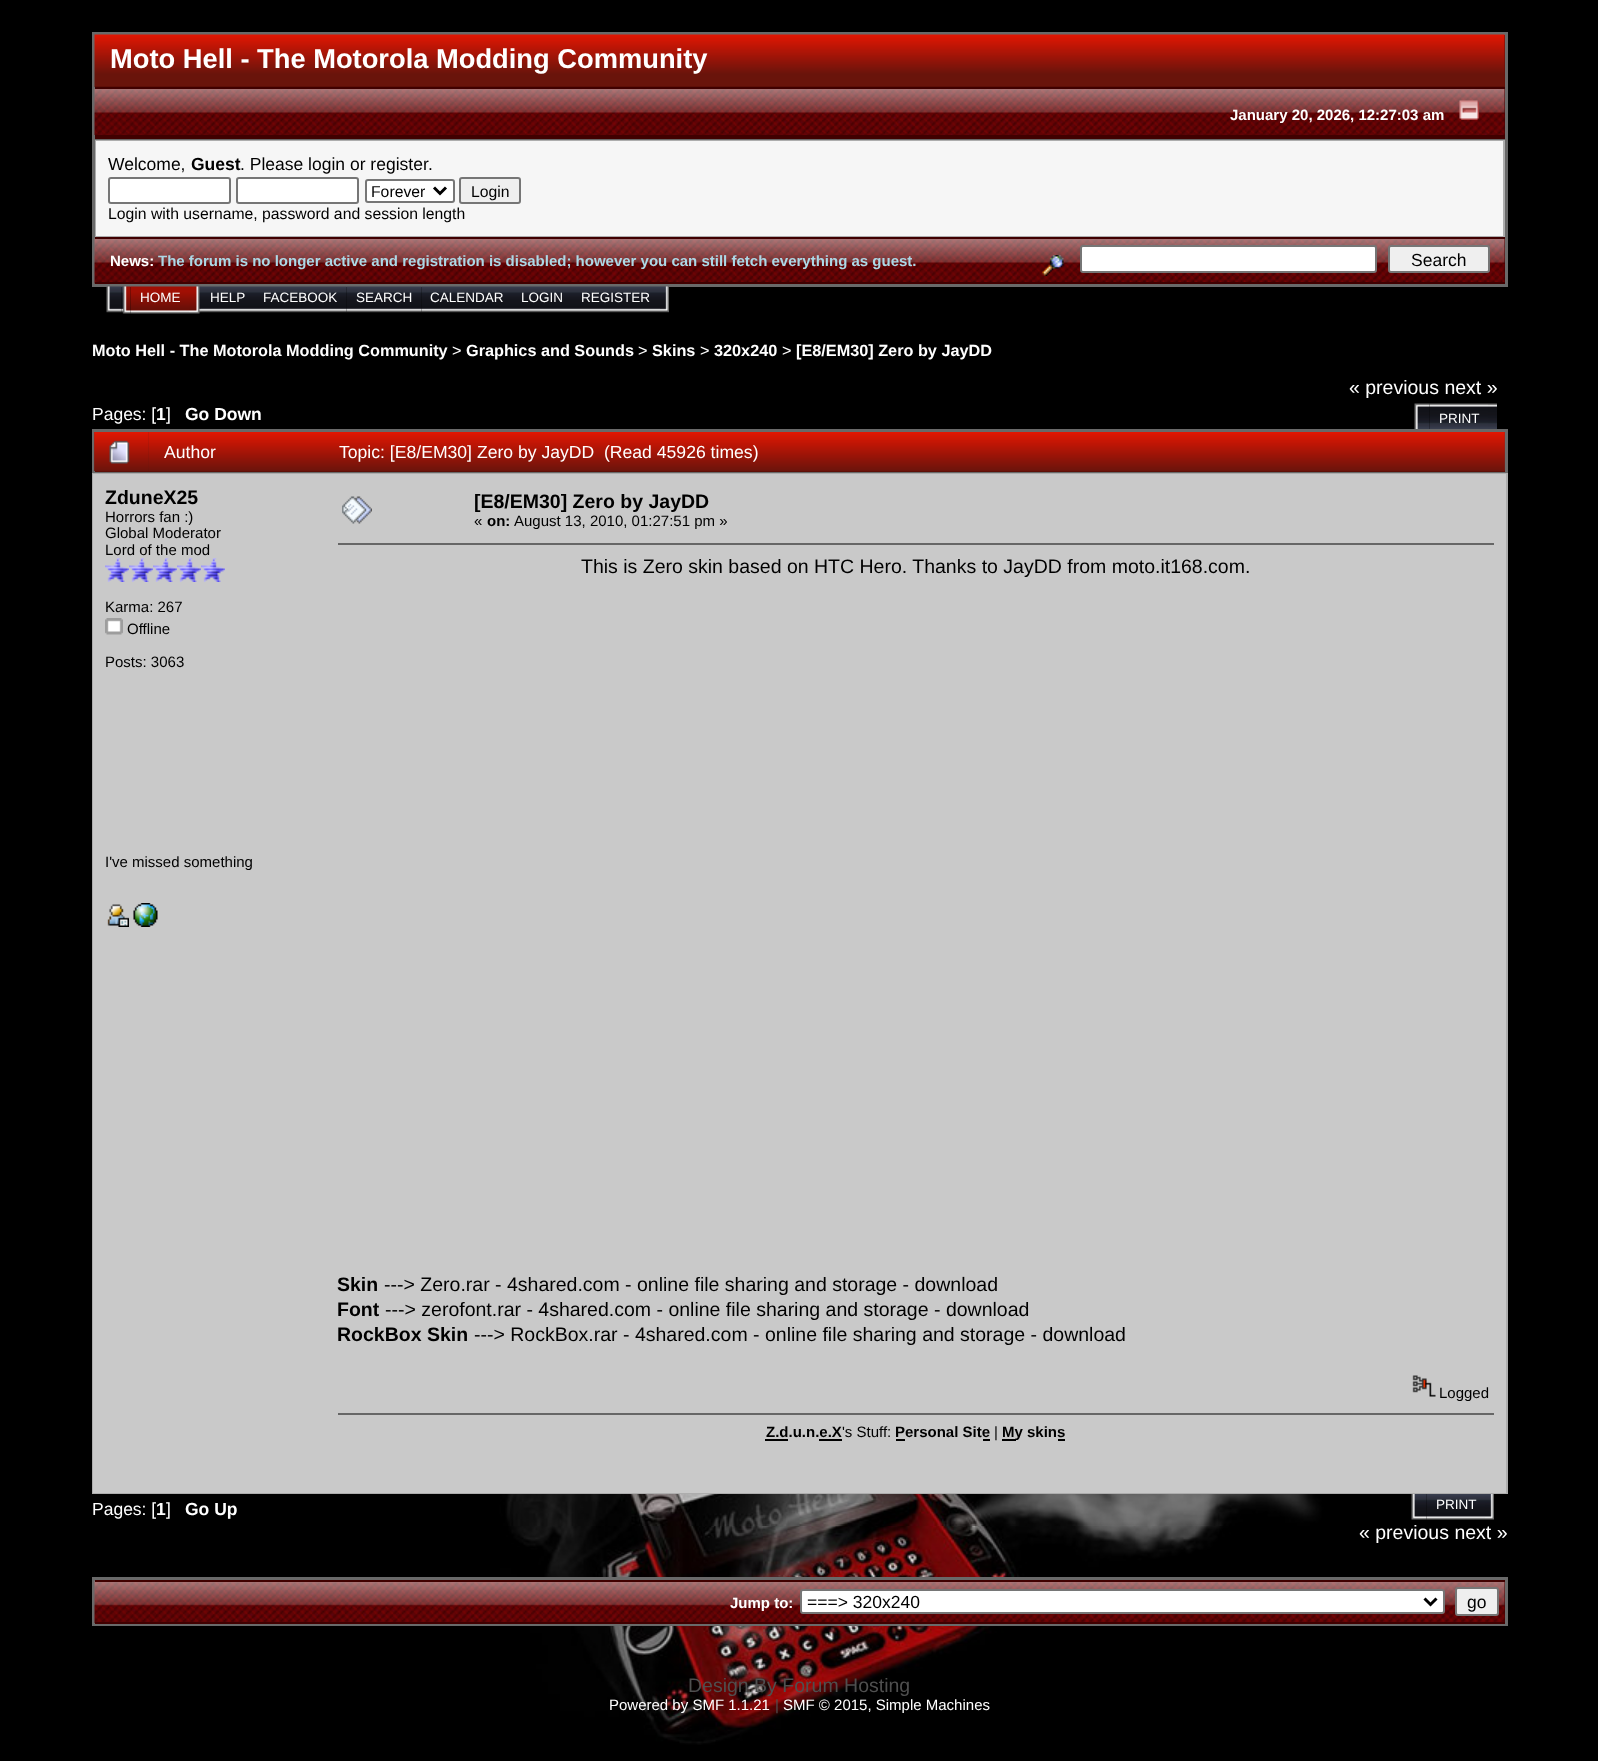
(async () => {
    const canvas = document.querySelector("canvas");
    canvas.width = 1598;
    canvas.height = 1761;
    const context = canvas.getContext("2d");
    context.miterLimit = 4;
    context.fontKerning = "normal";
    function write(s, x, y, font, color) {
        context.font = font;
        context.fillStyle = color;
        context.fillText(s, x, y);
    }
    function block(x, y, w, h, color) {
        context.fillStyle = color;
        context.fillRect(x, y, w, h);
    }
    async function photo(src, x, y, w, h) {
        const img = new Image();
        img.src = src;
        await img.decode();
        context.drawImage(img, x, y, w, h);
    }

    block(0, 0, 1598, 1761, "rgb(0, 0, 0)");
    await photo("media/1.png", 487, 1494, 844, 251);
    block(92, 32, 1416, 255, "rgb(105, 105, 105)");
    await photo("media/2.png", 94, 34, 842, 53);
    block(95, 86, 1410, 1, "rgb(94, 15, 7)");
    write("Moto Hell - The Motorola Modding Community", 110, 68, "bold 27.3px Liberation Sans", "rgb(255, 255, 255)");
    block(1504, 35, 1, 51, "rgb(94, 15, 7)");
    await photo("media/3.png", 936, 34, 569, 52);
    block(95, 89, 1410, 50, "rgb(64, 0, 0)");
    await photo("media/4.png", 94, 88, 1411, 47);
    block(95, 87, 1410, 2, "rgb(64, 0, 0)");
    write("January 20, 2026, 12:27:03 am", 1230, 120, "bold 15px Liberation Sans", "rgb(255, 255, 255)");
    await photo("media/5.png", 1459, 100, 20, 20);
    block(95, 140, 1410, 97, "rgb(173, 173, 173)");
    block(96, 141, 1407, 95, "rgb(246, 246, 246)");
    write("Welcome,", 108, 170, "17.5px Liberation Sans", "rgb(0, 0, 0)");
    write("Guest", 191, 170, "bold 17.5px Liberation Sans", "rgb(0, 0, 0)");
    write(". Please login or register", 240, 170, "17.5px Liberation Sans", "rgb(0, 0, 0)");
    write(".", 428, 170, "17.5px Liberation Sans", "rgb(0, 0, 0)");
    context.fillStyle = "rgb(255, 255, 255)";
    context.beginPath();
    context.roundRect(109, 178, 121, 25, 2);
    context.fill();
    context.strokeStyle = "rgb(118, 118, 118)";
    context.lineWidth = 2;
    context.stroke();
    context.beginPath();
    context.roundRect(237, 178, 121, 25, 2);
    context.fill();
    context.stroke();
    context.beginPath();
    context.roundRect(366, 180, 88, 22, 2);
    context.fill();
    context.stroke();
    context.beginPath();
    context.moveTo(434, 187.5);
    context.lineTo(440, 193.5);
    context.lineTo(446, 187.5);
    context.strokeStyle = "rgb(0, 0, 0)";
    context.lineWidth = 3;
    context.stroke();
    write("Forever", 371, 197, "15.75px Liberation Sans", "rgb(0, 0, 0)");
    context.fillStyle = "rgb(239, 239, 239)";
    context.beginPath();
    context.roundRect(460, 178, 60, 25, 2);
    context.fill();
    context.strokeStyle = "rgb(118, 118, 118)";
    context.lineWidth = 2;
    context.stroke();
    write("Login", 471, 197, "15.75px Liberation Sans", "rgb(0, 0, 0)");
    write("Login with username, password and session length", 108, 219, "15.75px Liberation Sans", "rgb(0, 0, 0)");
    await photo("media/6.png", 94, 238, 923, 46);
    block(95, 237, 1410, 2, "rgb(64, 0, 0)");
    block(95, 282, 1410, 2, "rgb(64, 0, 0)");
    write("News:", 110, 266, "bold 15px Liberation Sans", "rgb(255, 255, 255)");
    write("The forum is no longer active and registration is disabled; however you can still fetch everything as guest.", 158, 266, "bold 15px Liberation Sans", "rgb(173, 216, 230)");
    block(1504, 239, 1, 43, "rgb(64, 0, 0)");
    await photo("media/7.png", 1017, 239, 488, 43);
    await photo("media/8.png", 1042, 255, 22, 21);
    context.fillStyle = "rgb(255, 255, 255)";
    context.beginPath();
    context.roundRect(1081, 246, 295, 26, 2);
    context.fill();
    context.stroke();
    context.fillStyle = "rgb(239, 239, 239)";
    context.beginPath();
    context.roundRect(1389, 246, 100, 26, 2);
    context.fill();
    context.stroke();
    write("Search", 1411, 266, "17.5px Liberation Sans", "rgb(0, 0, 0)");
    await photo("media/9.png", 106, 286, 16, 27);
    await photo("media/10.png", 121, 286, 10, 28);
    await photo("media/11.png", 130, 286, 59, 28);
    write("HOME", 140, 302, "13.5px Liberation Sans", "rgb(255, 255, 255)");
    await photo("media/12.png", 189, 286, 12, 28);
    await photo("media/13.png", 201, 286, 54, 27);
    write("HELP", 210, 302, "13.5px Liberation Sans", "rgb(255, 255, 255)");
    await photo("media/14.png", 255, 286, 92, 27);
    write("FACEBOOK", 263, 302, "13.5px Liberation Sans", "rgb(255, 255, 255)");
    await photo("media/15.png", 346, 286, 76, 27);
    write("SEARCH", 356, 302, "13.5px Liberation Sans", "rgb(255, 255, 255)");
    await photo("media/16.png", 421, 286, 92, 27);
    write("CALENDAR", 430, 302, "13.5px Liberation Sans", "rgb(255, 255, 255)");
    await photo("media/17.png", 513, 286, 60, 27);
    write("LOGIN", 521, 302, "13.5px Liberation Sans", "rgb(255, 255, 255)");
    await photo("media/18.png", 573, 286, 87, 27);
    write("REGISTER", 581, 302, "13.5px Liberation Sans", "rgb(255, 255, 255)");
    await photo("media/19.png", 660, 286, 9, 27);
    write("Moto Hell - The Motorola Modding Community", 92, 356, "bold 16.25px Liberation Sans", "rgb(255, 255, 255)");
    write(">", 452, 356, "16.25px Liberation Sans", "rgb(255, 255, 255)");
    write("Graphics and Sounds", 466, 356, "bold 16.25px Liberation Sans", "rgb(255, 255, 255)");
    write(">", 638, 356, "16.25px Liberation Sans", "rgb(255, 255, 255)");
    write("Skins", 652, 356, "bold 16.25px Liberation Sans", "rgb(255, 255, 255)");
    write(">", 700, 356, "16.25px Liberation Sans", "rgb(255, 255, 255)");
    write("320x240", 714, 356, "bold 16.25px Liberation Sans", "rgb(255, 255, 255)");
    write(">", 782, 356, "16.25px Liberation Sans", "rgb(255, 255, 255)");
    write("[E8/EM30] Zero by JayDD", 796, 356, "bold 16.25px Liberation Sans", "rgb(255, 255, 255)");
    write("Pages: [", 92, 420, "17.5px Liberation Sans", "rgb(255, 255, 255)");
    write("1", 156, 420, "bold 17.5px Liberation Sans", "rgb(255, 255, 255)");
    write("]", 166, 420, "17.5px Liberation Sans", "rgb(255, 255, 255)");
    write("Go Down", 185, 420, "bold 17.5px Liberation Sans", "rgb(255, 255, 255)");
    write("« previous next »", 1349, 394, "19.5px Liberation Sans", "rgb(255, 255, 255)");
    await photo("media/20.png", 1414, 403, 16, 26);
    await photo("media/21.png", 1429, 403, 59, 26);
    write("PRINT", 1439, 423, "13.5px Liberation Sans", "rgb(255, 255, 255)");
    await photo("media/22.png", 1488, 403, 9, 26);
    block(92, 429, 1416, 44, "rgb(105, 105, 105)");
    block(95, 470, 1410, 2, "rgb(94, 15, 7)");
    await photo("media/23.png", 94, 432, 55, 39);
    await photo("media/24.png", 109, 440, 21, 24);
    await photo("media/25.png", 148, 432, 182, 39);
    write("Author", 164, 458, "17.6px Liberation Sans", "rgb(255, 255, 255)");
    await photo("media/26.png", 330, 432, 1175, 39);
    write("Topic: [E8/EM30] Zero by JayDD  (Read 45926 times)", 339, 458, "17.6px Liberation Sans", "rgb(255, 255, 255)");
    block(92, 473, 1416, 1021, "rgb(173, 173, 173)");
    block(93, 474, 1413, 1019, "rgb(201, 201, 201)");
    write("ZduneX25", 105, 504, "bold 19.5px Liberation Sans", "rgb(0, 0, 0)");
    write("Horrors fan :)", 105, 522, "15px Liberation Sans", "rgb(0, 0, 0)");
    write("Global Moderator", 105, 538, "15px Liberation Sans", "rgb(0, 0, 0)");
    write("Lord of the mod", 105, 555, "15px Liberation Sans", "rgb(0, 0, 0)");
    await photo("media/27.png", 105, 558, 24, 24);
    await photo("media/27.png", 129, 558, 24, 24);
    await photo("media/27.png", 153, 558, 24, 24);
    await photo("media/27.png", 177, 558, 24, 24);
    await photo("media/27.png", 201, 558, 24, 24);
    write("Karma: 267", 105, 612, "15px Liberation Sans", "rgb(0, 0, 0)");
    await photo("media/28.png", 105, 618, 18, 17);
    write("Offline", 127, 634, "15px Liberation Sans", "rgb(0, 0, 0)");
    write("Posts: 3063", 105, 667, "15px Liberation Sans", "rgb(0, 0, 0)");
    write("I've missed something", 105, 867, "15px Liberation Sans", "rgb(0, 0, 0)");
    await photo("media/29.png", 107, 904, 22, 23);
    await photo("media/30.png", 133, 903, 25, 24);
    await photo("media/31.png", 342, 496, 30, 28);
    write("[E8/EM30] Zero by JayDD", 474, 508, "bold 19.5px Liberation Sans", "rgb(0, 0, 0)");
    write("«", 474, 526, "15px Liberation Sans", "rgb(0, 0, 0)");
    write("on:", 487, 526, "bold 15px Liberation Sans", "rgb(0, 0, 0)");
    write("August 13, 2010, 01:27:51 pm »", 514, 526, "15px Liberation Sans", "rgb(0, 0, 0)");
    block(338, 543, 1156, 2, "rgb(102, 102, 102)");
    write("This is Zero skin based on HTC Hero. Thanks to JayDD from moto.it168.com.", 581, 573, "19.5px Liberation Sans", "rgb(0, 0, 0)");
    write("Skin", 337, 1291, "bold 19.5px Liberation Sans", "rgb(0, 0, 0)");
    write("---> Zero.rar - 4shared.com - online file sharing and storage - download", 384, 1291, "19.5px Liberation Sans", "rgb(0, 0, 0)");
    write("Font", 337, 1316, "bold 19.5px Liberation Sans", "rgb(0, 0, 0)");
    write("---> zerofont.rar - 4shared.com - online file sharing and storage - download", 385, 1316, "19.5px Liberation Sans", "rgb(0, 0, 0)");
    write("RockBox Skin", 337, 1341, "bold 19.5px Liberation Sans", "rgb(0, 0, 0)");
    write("---> RockBox.rar - 4shared.com - online file sharing and storage - download", 474, 1341, "19.5px Liberation Sans", "rgb(0, 0, 0)");
    await photo("media/32.png", 1412, 1375, 24, 22);
    write("Logged", 1439, 1398, "15px Liberation Sans", "rgb(0, 0, 0)");
    block(338, 1413, 1156, 2, "rgb(102, 102, 102)");
    write("Z.d.u.n.e.X", 766, 1437, "bold 15px Liberation Sans", "rgb(0, 0, 0)");
    block(765, 1439, 23, 2, "rgb(0, 0, 0)");
    block(819, 1439, 23, 2, "rgb(0, 0, 0)");
    write("'s Stuff:", 842, 1437, "15px Liberation Sans", "rgb(0, 0, 0)");
    write("Personal Site", 895, 1437, "bold 15px Liberation Sans", "rgb(0, 0, 0)");
    block(896, 1439, 9, 2, "rgb(0, 0, 0)");
    block(983, 1439, 7, 2, "rgb(0, 0, 0)");
    write("|", 994, 1437, "15px Liberation Sans", "rgb(0, 0, 0)");
    block(1002, 1439, 14, 2, "rgb(0, 0, 0)");
    write("My skins", 1002, 1437, "bold 15px Liberation Sans", "rgb(0, 0, 0)");
    block(1058, 1439, 7, 2, "rgb(0, 0, 0)");
    write("Pages: [", 92, 1515, "17.5px Liberation Sans", "rgb(255, 255, 255)");
    write("1", 156, 1515, "bold 17.5px Liberation Sans", "rgb(255, 255, 255)");
    write("]", 166, 1515, "17.5px Liberation Sans", "rgb(255, 255, 255)");
    write("Go Up", 185, 1515, "bold 17.5px Liberation Sans", "rgb(255, 255, 255)");
    await photo("media/33.png", 1411, 1494, 16, 26);
    await photo("media/34.png", 1426, 1494, 59, 26);
    write("PRINT", 1436, 1509, "13.5px Liberation Sans", "rgb(255, 255, 255)");
    await photo("media/35.png", 1485, 1494, 9, 26);
    write("« previous next »", 1359, 1539, "19.5px Liberation Sans", "rgb(255, 255, 255)");
    block(92, 1577, 1416, 49, "rgb(105, 105, 105)");
    block(1504, 1582, 1, 40, "rgb(64, 0, 0)");
    await photo("media/36.png", 94, 1581, 1411, 42);
    block(95, 1580, 1410, 2, "rgb(64, 0, 0)");
    block(95, 1622, 1410, 2, "rgb(64, 0, 0)");
    write("Jump to:", 730, 1608, "bold 15px Liberation Sans", "rgb(255, 255, 255)");
    context.beginPath();
    context.roundRect(801, 1590, 643, 23, 2);
    context.fill();
    context.stroke();
    context.beginPath();
    context.moveTo(1424.5, 1598.5);
    context.lineTo(1430.5, 1604.5);
    context.lineTo(1436.5, 1598.5);
    context.strokeStyle = "rgb(0, 0, 0)";
    context.lineWidth = 3;
    context.stroke();
    write("===> 320x240", 807, 1608, "17.5px Liberation Sans", "rgb(0, 0, 0)");
    context.fillStyle = "rgb(239, 239, 239)";
    context.beginPath();
    context.roundRect(1456, 1588, 42, 27, 2);
    context.fill();
    context.strokeStyle = "rgb(118, 118, 118)";
    context.lineWidth = 2;
    context.stroke();
    write("go", 1467, 1608, "17.5px Liberation Sans", "rgb(0, 0, 0)");
    write("Design By Forum Hosting", 688, 1692, "19.5px Liberation Sans", "rgb(79, 79, 79)");
    write("Powered by SMF 1.1.21", 609, 1710, "15px Liberation Sans", "rgb(255, 255, 255)");
    write("|", 775, 1710, "15px Liberation Sans", "rgb(79, 79, 79)");
    write("SMF © 2015, Simple Machines", 783, 1710, "15px Liberation Sans", "rgb(255, 255, 255)");
})();
